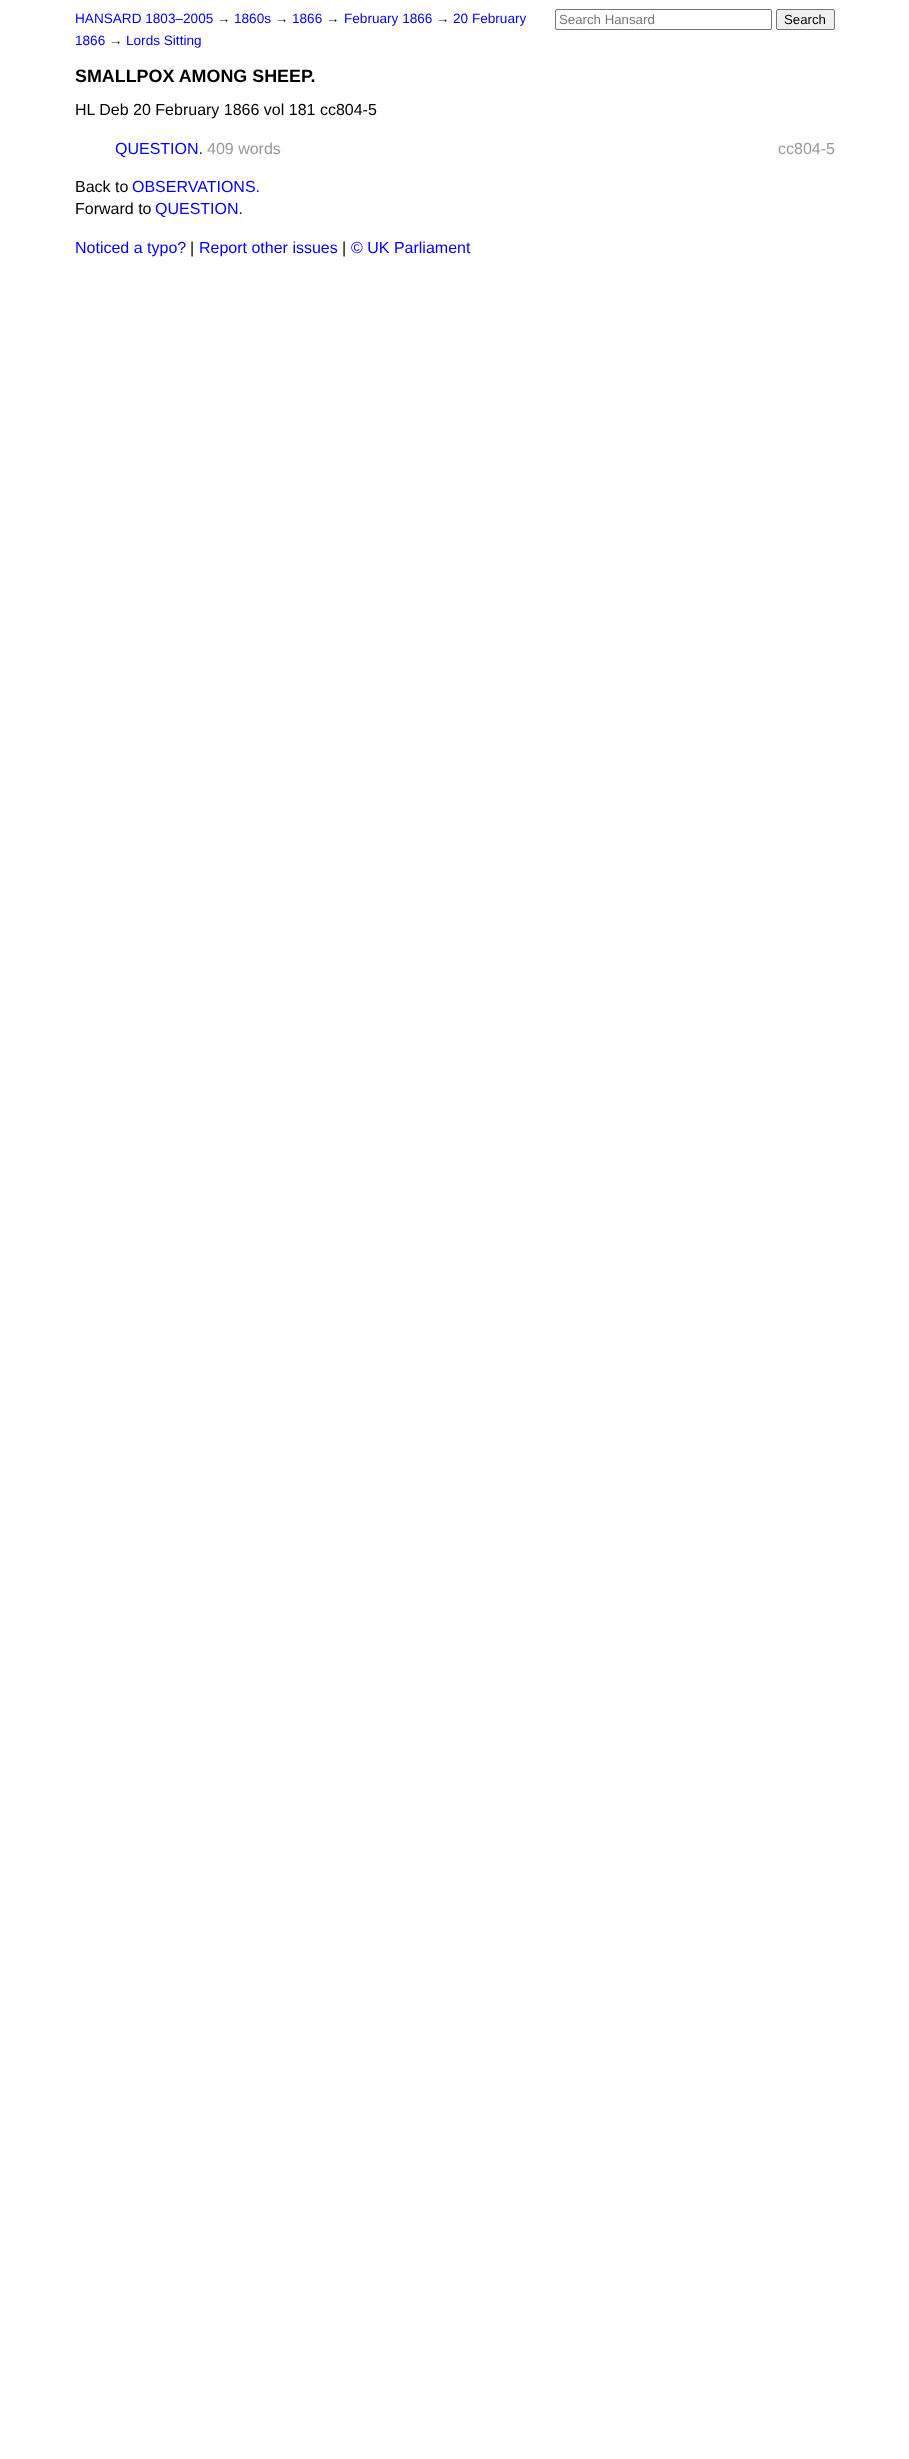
(async () => {
    const canvas = document.querySelector("canvas");
    canvas.width = 909;
    canvas.height = 2459;
    const context = canvas.getContext("2d");
    context.miterLimit = 4;
    context.fontKerning = "normal";
    function write(s, x, y, font, color) {
        context.font = font;
        context.fillStyle = color;
        context.fillText(s, x, y);
    }
    function block(x, y, w, h, color) {
        context.fillStyle = color;
        context.fillRect(x, y, w, h);
    }

    block(0, 0, 909, 2459, "rgb(255, 255, 255)");
    write("HANSARD 1803–2005", 75, 23, "13.6px Liberation Sans", "rgb(0, 0, 238)");
    write("→", 217, 23, "13.6px Liberation Sans", "rgb(0, 0, 0)");
    write("1860s", 234, 23, "13.6px Liberation Sans", "rgb(0, 0, 238)");
    write("→", 275, 23, "13.6px Liberation Sans", "rgb(0, 0, 0)");
    write("1866", 292, 23, "13.6px Liberation Sans", "rgb(0, 0, 238)");
    write("→", 326, 23, "13.6px Liberation Sans", "rgb(0, 0, 0)");
    write("February 1866", 344, 23, "13.6px Liberation Sans", "rgb(0, 0, 238)");
    write("→", 436, 23, "13.6px Liberation Sans", "rgb(0, 0, 0)");
    write("20 February", 453, 23, "13.6px Liberation Sans", "rgb(0, 0, 238)");
    write("1866", 75, 45, "13.6px Liberation Sans", "rgb(0, 0, 238)");
    write("→", 109, 45, "13.6px Liberation Sans", "rgb(0, 0, 0)");
    write("Lords Sitting", 126, 45, "13.6px Liberation Sans", "rgb(0, 0, 238)");
    context.beginPath();
    context.roundRect(555.5, 9.5, 216, 20, 1.5);
    context.strokeStyle = "rgb(118, 118, 118)";
    context.stroke();
    write("Search Hansard", 559, 24, "13.25px Liberation Sans", "rgb(117, 117, 117)");
    context.fillStyle = "rgb(239, 239, 239)";
    context.beginPath();
    context.roundRect(776.5, 9.5, 58, 20, 1.5);
    context.fill();
    context.stroke();
    write("Search", 784, 24, "13.25px Liberation Sans", "rgb(0, 0, 0)");
    write("SMALLPOX AMONG SHEEP.", 75, 82, "bold 17.9px Liberation Sans", "rgb(0, 0, 0)");
    write("HL Deb 20 February 1866 vol 181 cc804-5", 75, 115, "16px Liberation Sans", "rgb(0, 0, 0)");
    write("QUESTION.", 115, 154, "16px Liberation Sans", "rgb(0, 0, 238)");
    write("409 words", 207, 154, "16px Liberation Sans", "rgb(153, 153, 153)");
    write("cc804-5", 778, 154, "16px Liberation Sans", "rgb(153, 153, 153)");
    write("Back to", 75, 192, "16px Liberation Sans", "rgb(0, 0, 0)");
    write("OBSERVATIONS.", 132, 192, "16px Liberation Sans", "rgb(0, 0, 238)");
    write("Forward to", 75, 214, "16px Liberation Sans", "rgb(0, 0, 0)");
    write("QUESTION.", 155, 214, "16px Liberation Sans", "rgb(0, 0, 238)");
    write("Noticed a typo?", 75, 253, "16px Liberation Sans", "rgb(0, 0, 238)");
    write("|", 190, 253, "16px Liberation Sans", "rgb(0, 0, 0)");
    write("Report other issues", 199, 253, "16px Liberation Sans", "rgb(0, 0, 238)");
    write("|", 342, 253, "16px Liberation Sans", "rgb(0, 0, 0)");
    write("© UK Parliament", 351, 253, "16px Liberation Sans", "rgb(0, 0, 238)");
})();
